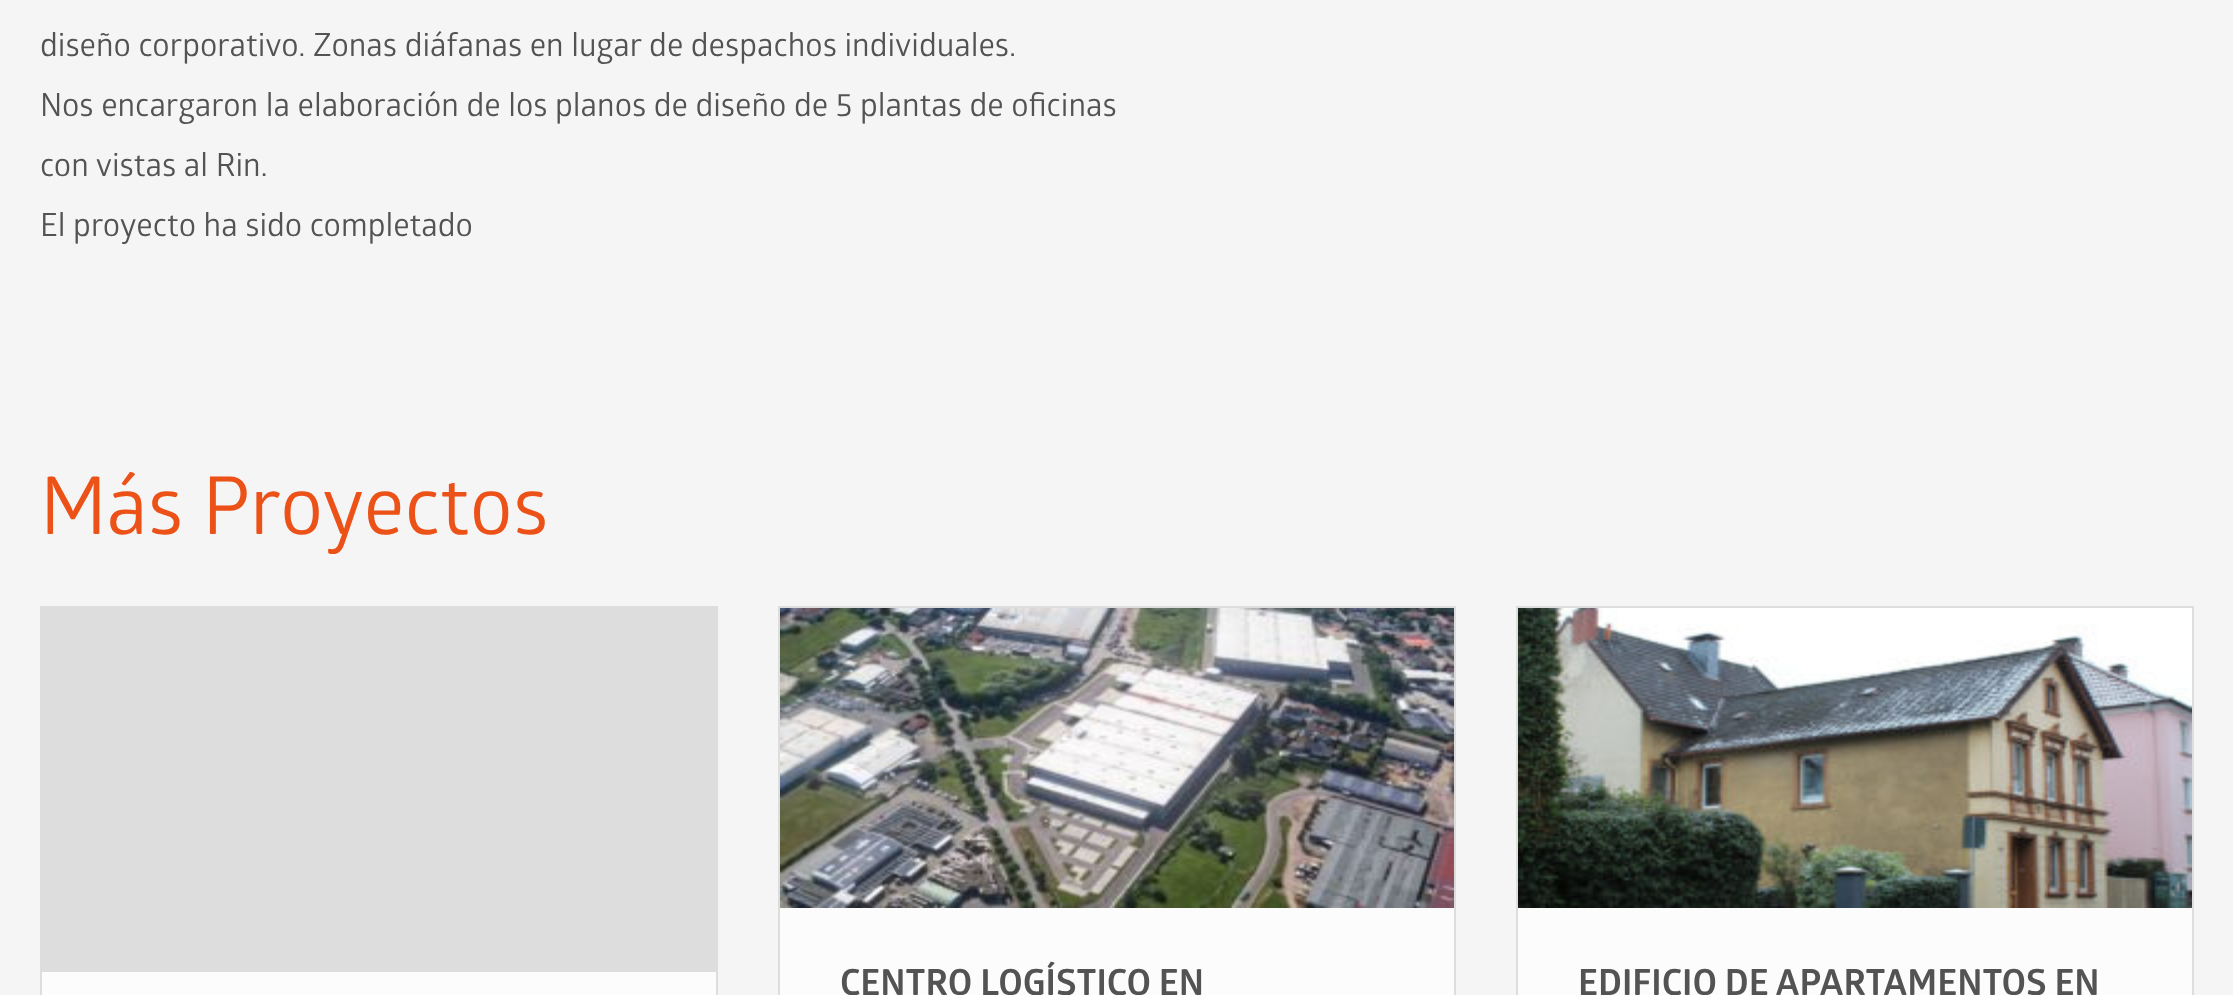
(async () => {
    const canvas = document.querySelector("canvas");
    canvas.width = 2233;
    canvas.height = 995;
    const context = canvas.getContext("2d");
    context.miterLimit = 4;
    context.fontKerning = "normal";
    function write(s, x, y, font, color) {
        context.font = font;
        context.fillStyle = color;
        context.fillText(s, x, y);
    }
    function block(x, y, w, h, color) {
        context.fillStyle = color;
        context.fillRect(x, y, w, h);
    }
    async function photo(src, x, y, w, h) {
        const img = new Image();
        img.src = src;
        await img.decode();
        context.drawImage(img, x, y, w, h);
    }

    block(0, 0, 2233, 995, "rgb(245, 245, 245)");
    write("diseño corporativo. Zonas diáfanas en lugar de despachos individuales.", 40, 56, "32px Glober", "rgb(83, 83, 83)");
    write("Nos encargaron la elaboración de los planos de diseño de 5 plantas de oficinas", 40, 116, "32px Glober", "rgb(83, 83, 83)");
    write("con vistas al Rin.", 40, 176, "32px Glober", "rgb(83, 83, 83)");
    write("El proyecto ha sido completado", 40, 236, "32px Glober", "rgb(83, 83, 83)");
    write("Más Proyectos", 40, 534, "80px Glober", "rgb(236, 81, 23)");
    block(42, 972, 674, 23, "rgb(252, 252, 252)");
    context.strokeStyle = "rgb(221, 221, 221)";
    context.lineWidth = 2;
    context.strokeRect(41, 607, 676, 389);
    block(42, 608, 674, 364, "rgb(221, 221, 221)");
    block(780, 908, 674, 87, "rgb(252, 252, 252)");
    context.strokeRect(779, 607, 676, 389);
    await photo("media/1.png", 780, 608, 674, 300);
    write("CENTRO LOGÍSTICO EN", 840, 995, "bold 36px Glober", "rgb(83, 83, 83)");
    block(1518, 908, 674, 87, "rgb(252, 252, 252)");
    context.strokeRect(1517, 607, 676, 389);
    await photo("media/2.png", 1518, 608, 674, 300);
    write("EDIFICIO DE APARTAMENTOS EN", 1578, 995, "bold 36px Glober", "rgb(83, 83, 83)");
})();
